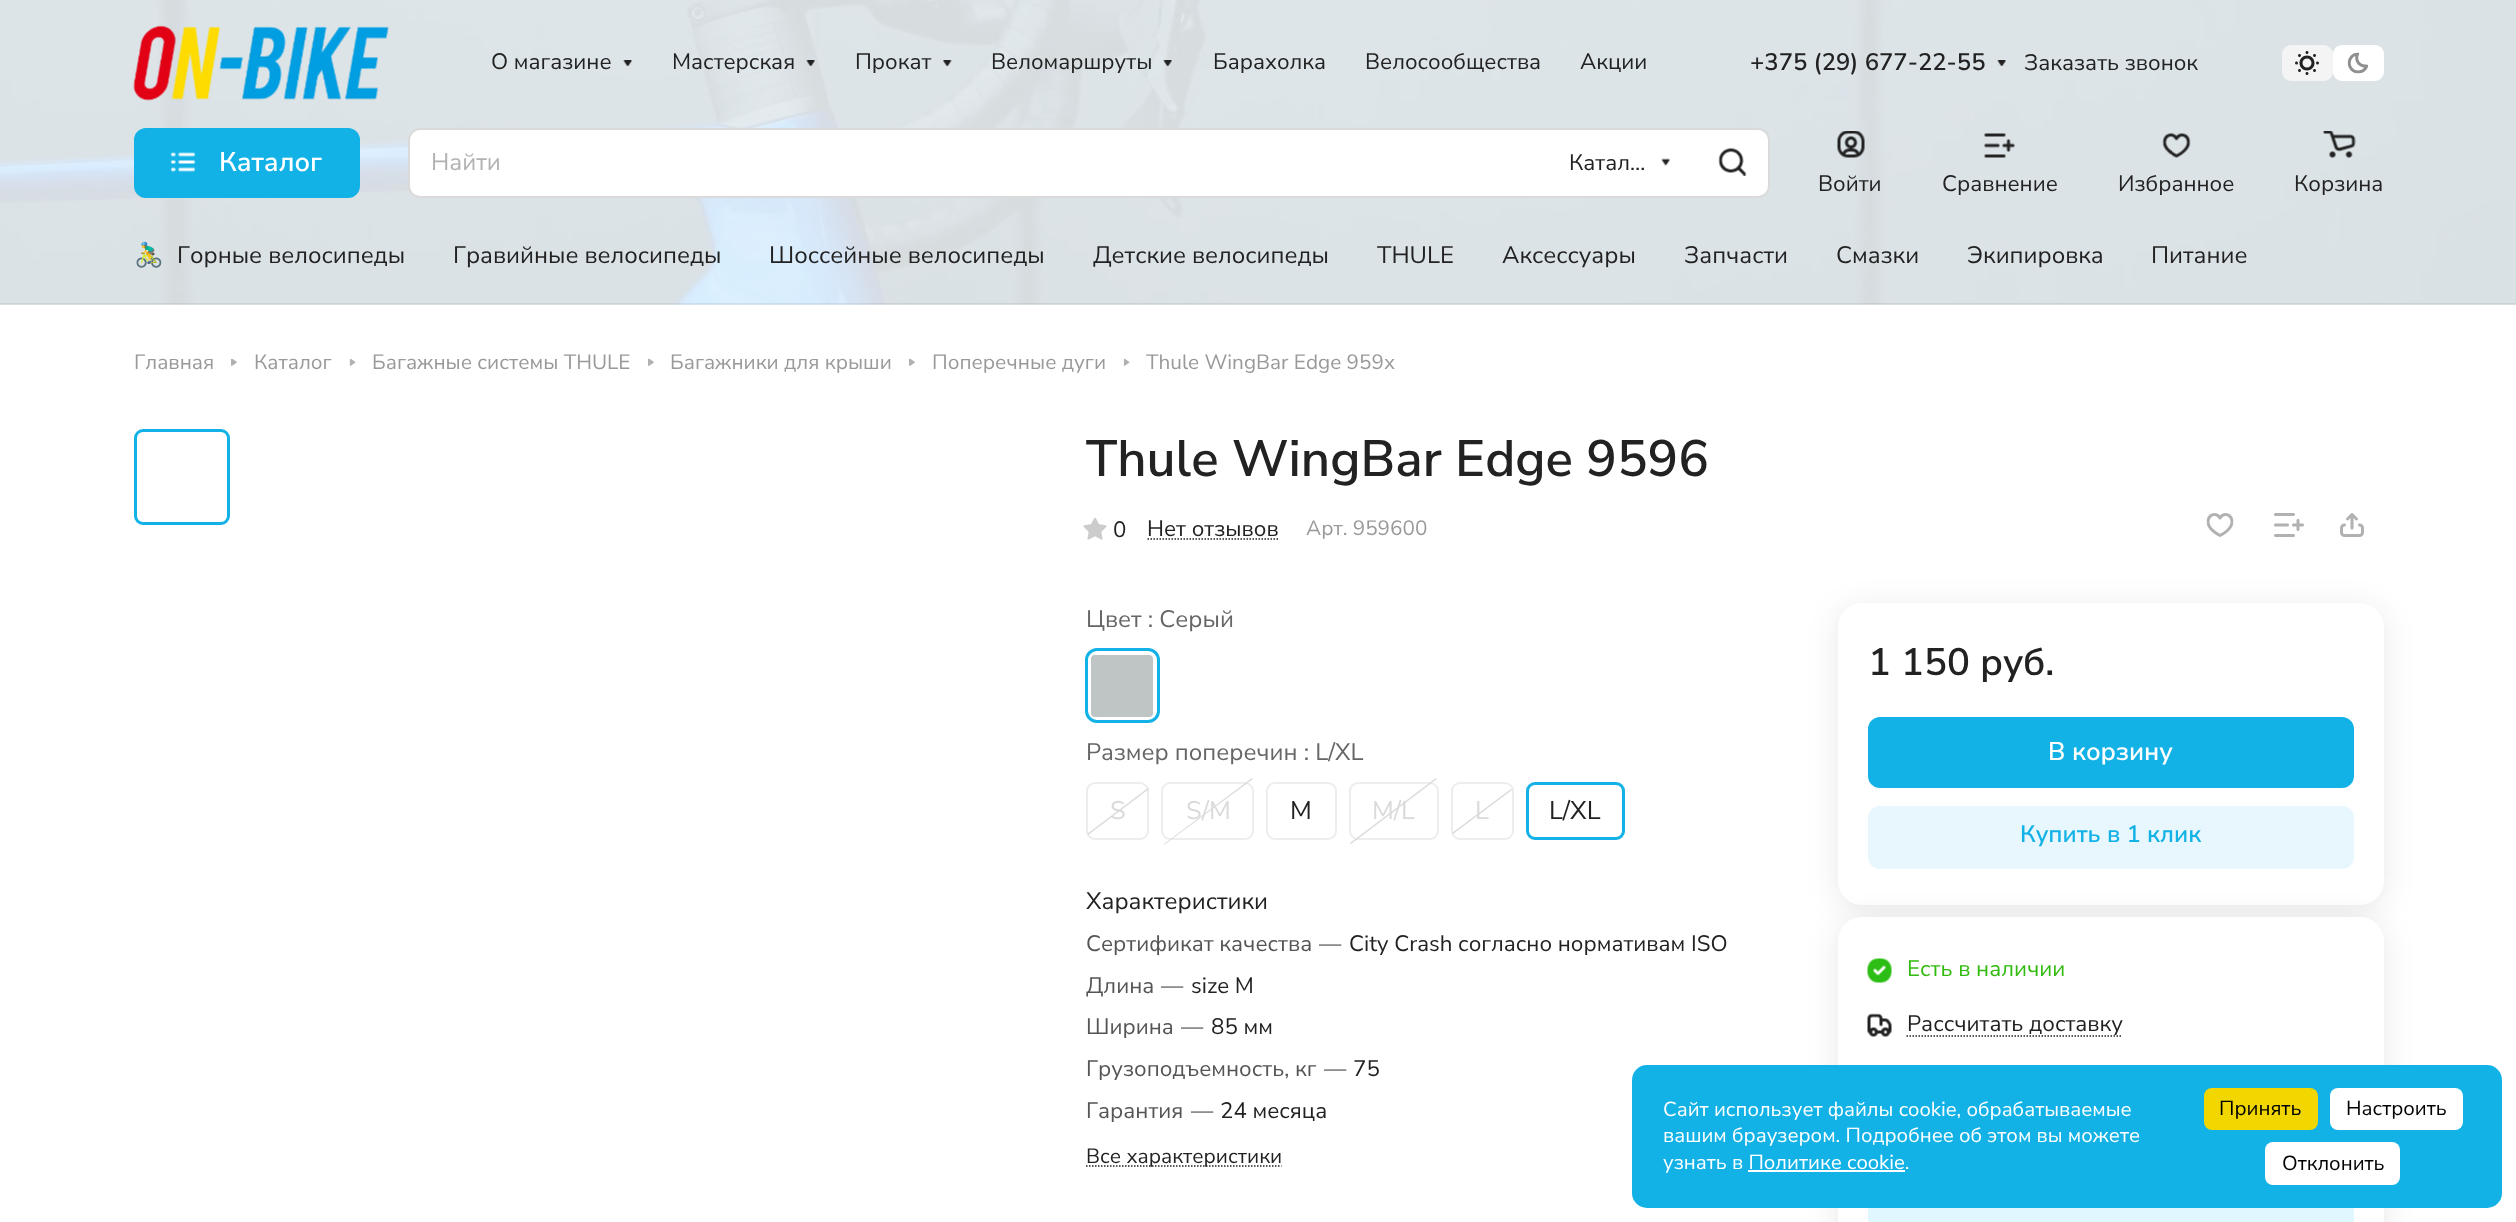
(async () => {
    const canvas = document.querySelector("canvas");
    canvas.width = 2516;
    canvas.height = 1222;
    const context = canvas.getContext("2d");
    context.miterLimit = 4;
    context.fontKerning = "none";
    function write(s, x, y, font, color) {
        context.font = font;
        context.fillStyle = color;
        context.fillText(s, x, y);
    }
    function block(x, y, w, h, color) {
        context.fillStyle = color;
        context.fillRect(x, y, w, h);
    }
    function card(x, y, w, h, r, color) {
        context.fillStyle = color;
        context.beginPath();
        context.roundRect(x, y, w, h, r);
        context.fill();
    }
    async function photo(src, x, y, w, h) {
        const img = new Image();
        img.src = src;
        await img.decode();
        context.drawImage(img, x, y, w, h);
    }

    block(0, 0, 2516, 1222, "rgb(255, 255, 255)");
    block(0, 0, 2516, 305, "rgb(246, 253, 255)");
    await photo("media/1.png", 0, 0, 2516, 305);
    block(0, 303, 2516, 2, "rgba(34, 34, 34, 0.08)");
    await photo("media/2.png", 133, 25, 256, 76);
    write("О магазине", 491, 69, "22.3px Nunito Sans", "rgb(34, 34, 34)");
    await photo("media/3.png", 623, 60, 9, 6);
    write("Мастерская", 672, 69, "22.3px Nunito Sans", "rgb(34, 34, 34)");
    await photo("media/4.png", 806, 60, 9, 6);
    write("Прокат", 855, 69, "22.3px Nunito Sans", "rgb(34, 34, 34)");
    await photo("media/5.png", 943, 60, 9, 6);
    write("Веломаршруты", 991, 69, "22.3px Nunito Sans", "rgb(34, 34, 34)");
    await photo("media/6.png", 1163, 60, 9, 6);
    write("Барахолка", 1213, 69, "22.3px Nunito Sans", "rgb(34, 34, 34)");
    write("Велосообщества", 1365, 69, "22.3px Nunito Sans", "rgb(34, 34, 34)");
    write("Акции", 1580, 69, "22.3px Nunito Sans", "rgb(34, 34, 34)");
    write("+375 (29) 677-22-55", 1750, 70, "600 23.9px Nunito Sans", "rgb(34, 34, 34)");
    await photo("media/7.png", 1997, 60, 9, 6);
    write("Заказать звонок", 2024, 70, "22.3px Nunito Sans", "rgb(34, 34, 34)");
    card(2282, 45, 51, 36, 9, "rgb(244, 244, 244)");
    await photo("media/8.png", 2295, 51, 24, 24);
    card(2333, 45, 51, 36, 9, "rgb(255, 255, 255)");
    await photo("media/9.png", 2347, 52, 22, 22);
    context.fillStyle = "rgb(18, 178, 231)";
    context.beginPath();
    context.roundRect(135, 129, 224, 68, 11);
    context.fill();
    context.strokeStyle = "rgb(18, 178, 231)";
    context.lineWidth = 2;
    context.stroke();
    await photo("media/10.png", 170, 152, 26, 20);
    write("Каталог", 219, 171, "600 27px Nunito Sans", "rgb(255, 255, 255)");
    context.beginPath();
    context.roundRect(409, 129, 1360, 68, 11);
    context.fill();
    context.strokeStyle = "rgb(218, 218, 218)";
    context.stroke();
    write("Найти", 431, 170, "24px Nunito Sans", "rgb(178, 178, 178)");
    write("Катал…", 1569, 170, "22.3px Nunito Sans", "rgb(34, 34, 34)");
    await photo("media/11.png", 1661, 158, 9, 8);
    await photo("media/12.png", 1718, 148, 29, 28);
    await photo("media/13.png", 1837, 131, 28, 27);
    write("Войти", 1818, 191, "22.3px Nunito Sans", "rgb(34, 34, 34)");
    await photo("media/14.png", 1984, 133, 31, 25);
    write("Сравнение", 1942, 191, "22.3px Nunito Sans", "rgb(34, 34, 34)");
    await photo("media/15.png", 2162, 133, 29, 25);
    write("Избранное", 2118, 191, "22.3px Nunito Sans", "rgb(34, 34, 34)");
    await photo("media/16.png", 2323, 131, 33, 27);
    write("Корзина", 2294, 191, "22.3px Nunito Sans", "rgb(34, 34, 34)");
    context.save();
    context.beginPath();
    context.rect(134, 234, 2250, 41);
    context.clip();
    write("🚴‍♂️", 134, 263, "23.9px Noto Color Emoji", "rgb(34, 34, 34)");
    context.restore();
    write("Горные велосипеды", 177, 263, "23.9px Nunito Sans", "rgb(34, 34, 34)");
    write("Гравийные велосипеды", 453, 263, "23.9px Nunito Sans", "rgb(34, 34, 34)");
    write("Шоссейные велосипеды", 769, 263, "23.9px Nunito Sans", "rgb(34, 34, 34)");
    write("Детские велосипеды", 1093, 263, "23.9px Nunito Sans", "rgb(34, 34, 34)");
    write("THULE", 1377, 263, "23.9px Nunito Sans", "rgb(34, 34, 34)");
    write("Аксессуары", 1502, 263, "23.9px Nunito Sans", "rgb(34, 34, 34)");
    write("Запчасти", 1684, 263, "23.9px Nunito Sans", "rgb(34, 34, 34)");
    write("Смазки", 1836, 263, "23.9px Nunito Sans", "rgb(34, 34, 34)");
    write("Экипировка", 1967, 263, "23.9px Nunito Sans", "rgb(34, 34, 34)");
    write("Питание", 2151, 263, "23.9px Nunito Sans", "rgb(34, 34, 34)");
    write("Главная", 134, 369, "20.75px Nunito Sans", "rgb(153, 153, 153)");
    await photo("media/17.png", 231, 358, 6, 8);
    write("Каталог", 254, 369, "20.75px Nunito Sans", "rgb(153, 153, 153)");
    await photo("media/18.png", 349, 358, 7, 8);
    write("Багажные системы THULE", 372, 369, "20.75px Nunito Sans", "rgb(153, 153, 153)");
    await photo("media/17.png", 648, 358, 6, 8);
    write("Багажники для крыши", 670, 369, "20.75px Nunito Sans", "rgb(153, 153, 153)");
    await photo("media/17.png", 909, 358, 6, 8);
    write("Поперечные дуги", 932, 369, "20.75px Nunito Sans", "rgb(153, 153, 153)");
    await photo("media/18.png", 1123, 358, 7, 8);
    write("Thule WingBar Edge 959х", 1146, 369, "20.75px Nunito Sans", "rgb(153, 153, 153)");
    context.beginPath();
    context.roundRect(135.5, 430.5, 93, 93, 7.5);
    context.strokeStyle = "rgb(18, 178, 231)";
    context.lineWidth = 3;
    context.stroke();
    write("Thule WingBar Edge 9596", 1086, 476, "600 51px Nunito Sans", "rgb(34, 34, 34)");
    await photo("media/19.png", 1083, 518, 24, 22);
    write("0", 1113, 537, "22.3px Nunito Sans", "rgb(34, 34, 34)");
    write("Нет отзывов", 1147, 536, "22.3px Nunito Sans", "rgb(34, 34, 34)");
    context.beginPath();
    context.moveTo(1147.5, 539);
    context.lineTo(1279, 539);
    context.strokeStyle = "rgb(34, 34, 34)";
    context.lineWidth = 1.5;
    context.setLineDash([1.5, 1.5]);
    context.stroke();
    write("Арт. 959600", 1306, 535, "20.75px Nunito Sans", "rgb(153, 153, 153)");
    await photo("media/20.png", 2206, 513, 28, 24);
    await photo("media/21.png", 2274, 513, 30, 24);
    await photo("media/22.png", 2340, 513, 24, 24);
    write("Цвет : Серый", 1086, 627, "23.9px Nunito Sans", "rgb(102, 102, 102)");
    block(1091, 655, 62, 62, "rgb(191, 196, 196)");
    context.beginPath();
    context.roundRect(1088.5, 652.5, 67, 67, 6.5);
    context.strokeStyle = "rgb(255, 255, 255)";
    context.lineWidth = 5;
    context.setLineDash([]);
    context.stroke();
    context.beginPath();
    context.roundRect(1086.5, 649.5, 72, 72, 10.5);
    context.strokeStyle = "rgb(18, 178, 231)";
    context.lineWidth = 3;
    context.stroke();
    write("Размер поперечин : L/XL", 1086, 760, "23.9px Nunito Sans", "rgb(102, 102, 102)");
    context.beginPath();
    context.roundRect(1087, 783, 61, 56, 8);
    context.strokeStyle = "rgb(237, 237, 237)";
    context.lineWidth = 2;
    context.stroke();
    context.fillStyle = "rgb(218, 218, 218)";
    context.beginPath();
    context.moveTo(1087, 834);
    context.lineTo(1148, 788);
    context.lineTo(1149, 789);
    context.lineTo(1088, 835);
    context.closePath();
    context.fill();
    write("S", 1110, 819, "25.5px Nunito Sans", "rgb(218, 218, 218)");
    context.beginPath();
    context.roundRect(1162, 783, 91, 56, 8);
    context.stroke();
    context.beginPath();
    context.moveTo(1164, 844);
    context.lineTo(1252, 778);
    context.lineTo(1253, 779);
    context.lineTo(1164, 845);
    context.closePath();
    context.fill();
    write("S/M", 1186, 819, "25.5px Nunito Sans", "rgb(218, 218, 218)");
    context.beginPath();
    context.roundRect(1267, 783, 69, 56, 8);
    context.stroke();
    write("M", 1290, 819, "25.5px Nunito Sans", "rgb(34, 34, 34)");
    context.beginPath();
    context.roundRect(1350, 783, 88, 56, 8);
    context.stroke();
    context.fillStyle = "rgb(218, 218, 218)";
    context.beginPath();
    context.moveTo(1350, 843);
    context.lineTo(1436, 778);
    context.lineTo(1437, 779);
    context.lineTo(1351, 844);
    context.closePath();
    context.fill();
    write("M/L", 1372, 819, "25.5px Nunito Sans", "rgb(218, 218, 218)");
    context.beginPath();
    context.roundRect(1452, 783, 61, 56, 8);
    context.stroke();
    context.beginPath();
    context.moveTo(1452, 833);
    context.lineTo(1511, 789);
    context.lineTo(1512, 790);
    context.lineTo(1453, 834);
    context.closePath();
    context.fill();
    write("L", 1475, 819, "25.5px Nunito Sans", "rgb(218, 218, 218)");
    context.beginPath();
    context.roundRect(1527, 783, 97, 56, 8);
    context.stroke();
    context.beginPath();
    context.roundRect(1527.5, 783.5, 96, 55, 7.5);
    context.strokeStyle = "rgb(18, 178, 231)";
    context.lineWidth = 3;
    context.stroke();
    write("L/XL", 1549, 819, "25.5px Nunito Sans", "rgb(34, 34, 34)");
    write("Характеристики", 1086, 909, "23.9px Nunito Sans", "rgb(34, 34, 34)");
    write("Сертификат качества", 1086, 951, "22.3px Nunito Sans", "rgb(85, 85, 85)");
    write("—", 1319, 951, "22.3px Nunito Sans", "rgb(85, 85, 85)");
    write("City Crash согласно нормативам ISO", 1349, 951, "22.3px Nunito Sans", "rgb(34, 34, 34)");
    write("Длина", 1086, 993, "22.3px Nunito Sans", "rgb(85, 85, 85)");
    write("—", 1161, 993, "22.3px Nunito Sans", "rgb(85, 85, 85)");
    write("size M", 1191, 993, "22.3px Nunito Sans", "rgb(34, 34, 34)");
    write("Ширина", 1086, 1034, "22.3px Nunito Sans", "rgb(85, 85, 85)");
    write("—", 1181, 1034, "22.3px Nunito Sans", "rgb(85, 85, 85)");
    write("85 мм", 1211, 1034, "22.3px Nunito Sans", "rgb(34, 34, 34)");
    write("Грузоподъемность, кг", 1086, 1076, "22.3px Nunito Sans", "rgb(85, 85, 85)");
    write("—", 1324, 1076, "22.3px Nunito Sans", "rgb(85, 85, 85)");
    write("75", 1353, 1076, "22.3px Nunito Sans", "rgb(34, 34, 34)");
    write("Гарантия", 1086, 1118, "22.3px Nunito Sans", "rgb(85, 85, 85)");
    write("—", 1191, 1118, "22.3px Nunito Sans", "rgb(85, 85, 85)");
    write("24 месяца", 1220, 1118, "22.3px Nunito Sans", "rgb(34, 34, 34)");
    context.beginPath();
    context.moveTo(1086, 1166);
    context.lineTo(1281.5, 1166);
    context.strokeStyle = "rgb(34, 34, 34)";
    context.lineWidth = 1.5;
    context.setLineDash([1.5, 1.5]);
    context.stroke();
    write("Все характеристики", 1086, 1163, "20.75px Nunito Sans", "rgb(34, 34, 34)");
    context.fillStyle = "rgba(34, 34, 34, 0.1)";
    context.filter = "blur(15px)";
    context.beginPath();
    context.roundRect(1838, 608, 546, 301, 24);
    context.fill();
    context.filter = "none";
    card(1838, 603, 546, 302, 24, "rgb(255, 255, 255)");
    write("1 150 руб.", 1868, 675, "600 38.25px Nunito Sans", "rgb(34, 34, 34)");
    context.fillStyle = "rgb(18, 178, 231)";
    context.beginPath();
    context.roundRect(1869, 718, 484, 69, 11);
    context.fill();
    context.strokeStyle = "rgb(18, 178, 231)";
    context.lineWidth = 2;
    context.setLineDash([]);
    context.stroke();
    write("В корзину", 2048, 760, "600 25.5px Nunito Sans", "rgb(255, 255, 255)");
    card(1868, 806, 486, 63, 12, "rgb(231, 247, 253)");
    write("Купить в 1 клик", 2020, 842, "600 23.9px Nunito Sans", "rgb(18, 178, 231)");
    context.fillStyle = "rgba(34, 34, 34, 0.1)";
    context.filter = "blur(15px)";
    context.beginPath();
    context.roundRect(1838, 921, 546, 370, 24);
    context.fill();
    context.filter = "none";
    card(1838, 917, 546, 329, 24, "rgb(255, 255, 255)");
    await photo("media/23.png", 1867, 958, 25, 25);
    write("Есть в наличии", 1907, 976, "22.3px Nunito Sans", "rgb(51, 187, 17)");
    await photo("media/24.png", 1867, 1013, 25, 24);
    write("Рассчитать доставку", 1907, 1031, "22.3px Nunito Sans", "rgb(34, 34, 34)");
    context.beginPath();
    context.moveTo(1906.5, 1036);
    context.lineTo(2122.5, 1036);
    context.strokeStyle = "rgb(34, 34, 34)";
    context.lineWidth = 1.5;
    context.setLineDash([1.5, 1.5]);
    context.stroke();
    block(1868, 1208, 486, 14, "rgb(224, 247, 255)");
    card(1632, 1065, 870, 143, 15, "rgb(18, 178, 231)");
    write("Сайт использует файлы cookie, обрабатываемые", 1663, 1116, "20.4px Nunito Sans", "rgb(255, 255, 255)");
    write("вашим браузером. Подробнее об этом вы можете", 1663, 1142, "20.4px Nunito Sans", "rgb(255, 255, 255)");
    write("узнать в Политике cookie.", 1663, 1169, "20.4px Nunito Sans", "rgb(255, 255, 255)");
    block(1748, 1170, 157, 2, "rgb(255, 255, 255)");
    card(2204, 1088, 114, 42, 8, "rgb(241, 214, 0)");
    write("Принять", 2219, 1115, "20.4px Nunito Sans", "rgb(0, 0, 0)");
    card(2330, 1088, 133, 42, 8, "rgb(255, 255, 255)");
    write("Настроить", 2346, 1115, "20.4px Nunito Sans", "rgb(0, 0, 0)");
    card(2265, 1142, 135, 43, 8, "rgb(255, 255, 255)");
    write("Отклонить", 2282, 1170, "20.4px Nunito Sans", "rgb(0, 0, 0)");
})();
